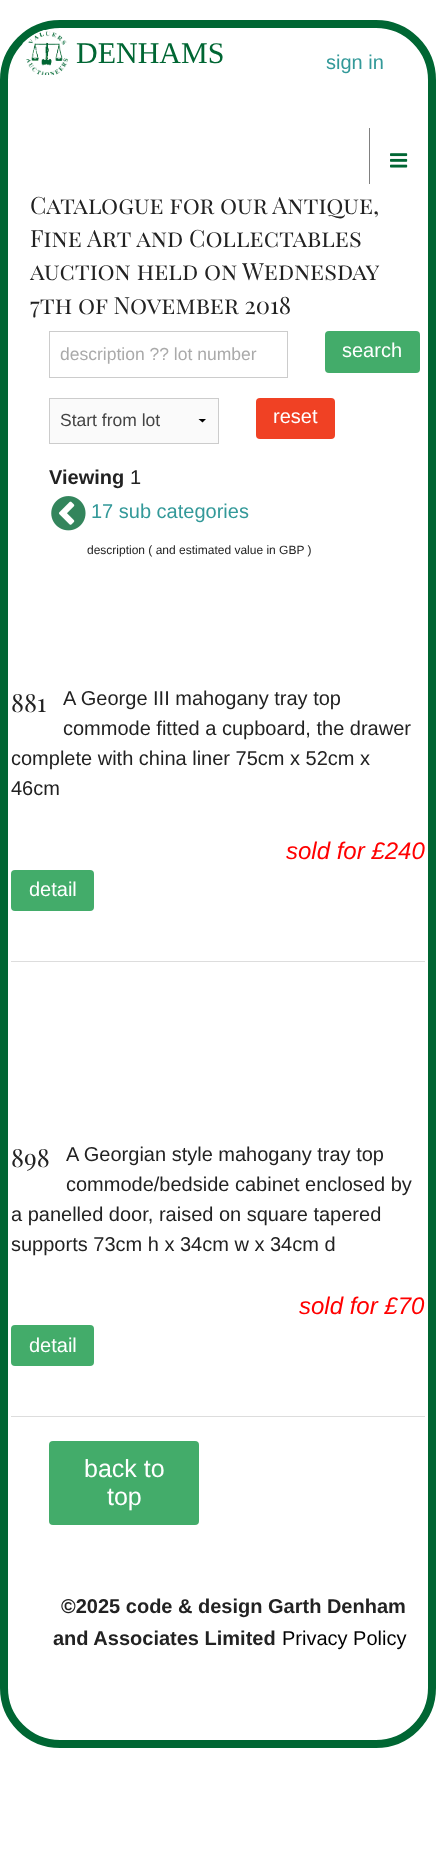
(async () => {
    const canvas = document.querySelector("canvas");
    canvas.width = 436;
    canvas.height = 1850;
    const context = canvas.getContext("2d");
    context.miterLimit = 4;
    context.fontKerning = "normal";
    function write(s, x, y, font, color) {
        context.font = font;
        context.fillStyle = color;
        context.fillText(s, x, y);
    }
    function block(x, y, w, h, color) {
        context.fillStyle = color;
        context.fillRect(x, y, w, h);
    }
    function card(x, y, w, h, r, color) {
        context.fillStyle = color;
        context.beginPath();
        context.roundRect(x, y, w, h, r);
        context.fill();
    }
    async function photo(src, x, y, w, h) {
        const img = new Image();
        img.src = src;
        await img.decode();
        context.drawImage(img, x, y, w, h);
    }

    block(0, 0, 436, 1850, "rgb(255, 255, 255)");
    context.beginPath();
    context.roundRect(4, 24, 428, 1720, 56);
    context.strokeStyle = "rgb(0, 102, 51)";
    context.lineWidth = 8;
    context.stroke();
    context.save();
    context.beginPath();
    context.roundRect(8, 28, 421, 1712, 53);
    context.clip();
    block(26, 30, 199, 45, "rgb(255, 255, 255)");
    context.restore();
    await photo("media/1.png", 22, 30, 46, 45);
    write("DENHAMS", 76, 63, "30px Liberation Serif", "rgb(0, 102, 51)");
    write("sign in", 326, 69, "20px Liberation Sans", "rgb(51, 153, 153)");
    block(369, 128, 1, 56, "rgb(128, 128, 128)");
    await photo("media/2.png", 390, 153, 18, 15);
    write("Catalogue for our Antique,", 30, 214, "23.75px Playfair Display SC", "rgb(34, 34, 34)");
    write("Fine Art and Collectables", 30, 247, "23.75px Playfair Display SC", "rgb(34, 34, 34)");
    write("auction held on Wednesday", 30, 280, "23.75px Playfair Display SC", "rgb(34, 34, 34)");
    write("7th of November 2018", 30, 314, "23.75px Playfair Display SC", "rgb(34, 34, 34)");
    context.strokeStyle = "rgb(204, 204, 204)";
    context.lineWidth = 1;
    context.strokeRect(49.5, 331.5, 238, 46);
    write("description ?? lot number", 60, 360, "17.5px Liberation Sans", "rgb(170, 170, 170)");
    card(325, 331, 95, 42, 4, "rgb(67, 172, 106)");
    write("search", 342, 357, "20px Liberation Sans", "rgb(255, 255, 255)");
    card(256, 398, 79, 41, 4, "rgb(240, 65, 36)");
    write("reset", 273, 423, "20px Liberation Sans", "rgb(255, 255, 255)");
    block(50, 399, 168, 44, "rgb(250, 250, 250)");
    context.fillStyle = "rgb(0, 0, 0)";
    context.beginPath();
    context.moveTo(206, 419);
    context.lineTo(202.5, 422.5);
    context.lineTo(198.5, 419);
    context.closePath();
    context.fill();
    context.strokeRect(49.5, 398.5, 169, 45);
    write("Start from lot", 60, 426, "17.5px Liberation Sans", "rgb(68, 68, 68)");
    write("Viewing", 49, 484, "bold 20px Liberation Sans", "rgb(34, 34, 34)");
    write("1", 130, 484, "20px Liberation Sans", "rgb(34, 34, 34)");
    await photo("media/3.png", 51, 496, 35, 35);
    write("17 sub categories", 91, 518, "20px Liberation Sans", "rgb(51, 153, 153)");
    write("description ( and estimated value in GBP )", 87, 554, "12px Liberation Sans", "rgb(34, 34, 34)");
    write("A George III mahogany tray top", 63, 705, "20px Liberation Sans", "rgb(34, 34, 34)");
    write("commode fitted a cupboard, the drawer", 63, 735, "20px Liberation Sans", "rgb(34, 34, 34)");
    write("complete with china liner 75cm x 52cm x", 11, 765, "20px Liberation Sans", "rgb(34, 34, 34)");
    write("46cm", 11, 795, "20px Liberation Sans", "rgb(34, 34, 34)");
    write("sold for £240", 286, 859, "italic 24px Liberation Sans", "rgb(255, 0, 0)");
    write("881", 11, 712, "25px Playfair Display SC", "rgb(34, 34, 34)");
    card(11, 870, 83, 41, 4, "rgb(67, 172, 106)");
    write("detail", 29, 896, "20px Liberation Sans", "rgb(255, 255, 255)");
    block(11, 961, 414, 1, "rgb(221, 221, 221)");
    write("A Georgian style mahogany tray top", 66, 1161, "20px Liberation Sans", "rgb(34, 34, 34)");
    write("commode/bedside cabinet enclosed by", 66, 1191, "20px Liberation Sans", "rgb(34, 34, 34)");
    write("a panelled door, raised on square tapered", 11, 1221, "20px Liberation Sans", "rgb(34, 34, 34)");
    write("supports 73cm h x 34cm w x 34cm d", 11, 1251, "20px Liberation Sans", "rgb(34, 34, 34)");
    write("sold for £70", 299, 1314, "italic 24px Liberation Sans", "rgb(255, 0, 0)");
    write("898", 11, 1167, "25px Playfair Display SC", "rgb(34, 34, 34)");
    card(11, 1325, 83, 41, 4, "rgb(67, 172, 106)");
    write("detail", 29, 1352, "20px Liberation Sans", "rgb(255, 255, 255)");
    block(11, 1416, 414, 1, "rgb(221, 221, 221)");
    card(49, 1441, 150, 84, 4, "rgb(67, 172, 106)");
    write("back to", 84, 1477, "25px Liberation Sans", "rgb(255, 255, 255)");
    write("top", 107, 1505, "25px Liberation Sans", "rgb(255, 255, 255)");
    write("©2025 code & design Garth Denham", 61, 1613, "bold 20px Liberation Sans", "rgb(34, 34, 34)");
    write("and Associates Limited", 53, 1645, "bold 20px Liberation Sans", "rgb(34, 34, 34)");
    write("Privacy Policy", 282, 1645, "20px Liberation Sans", "rgb(0, 0, 0)");
})();
